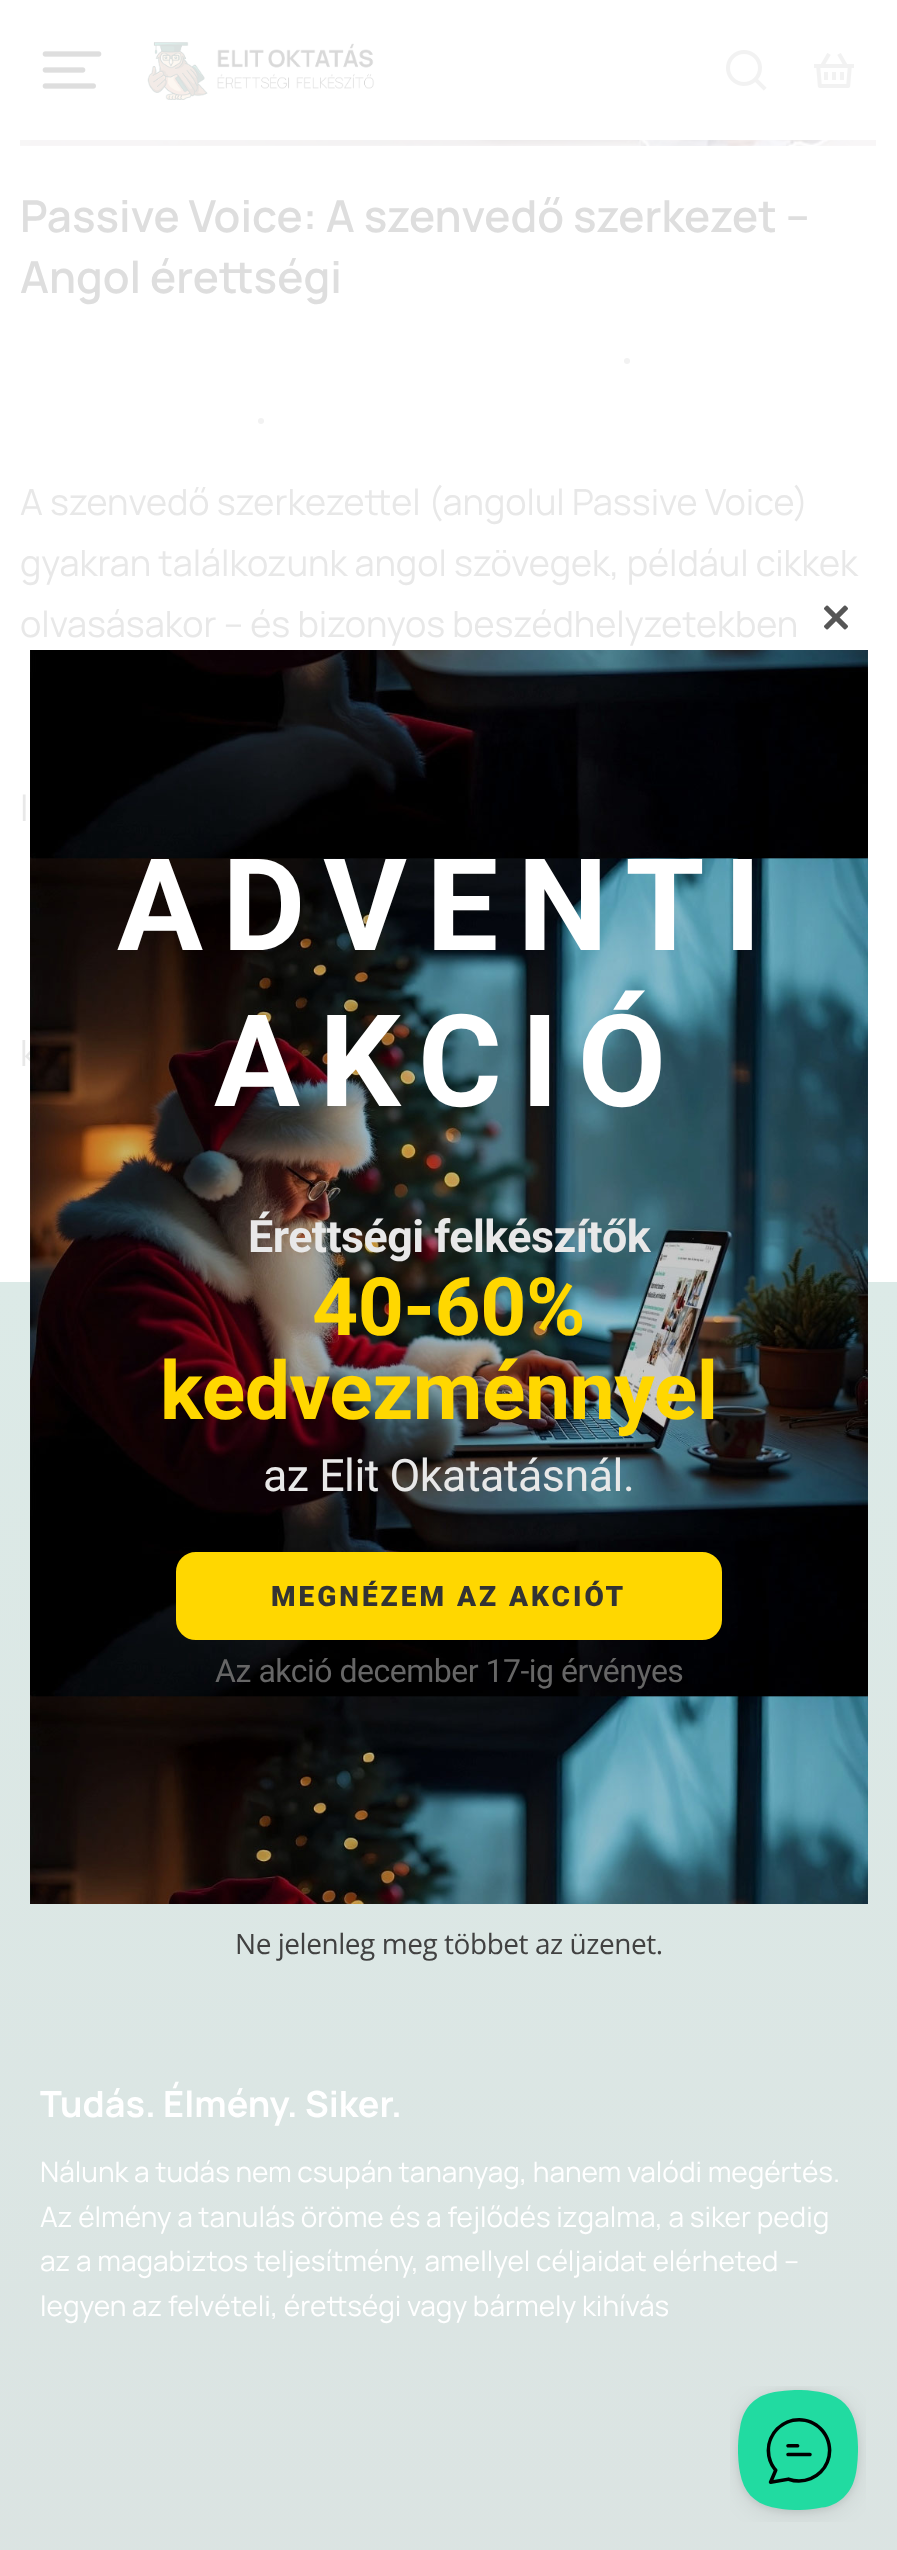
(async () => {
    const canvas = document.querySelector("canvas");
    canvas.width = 897;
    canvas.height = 2550;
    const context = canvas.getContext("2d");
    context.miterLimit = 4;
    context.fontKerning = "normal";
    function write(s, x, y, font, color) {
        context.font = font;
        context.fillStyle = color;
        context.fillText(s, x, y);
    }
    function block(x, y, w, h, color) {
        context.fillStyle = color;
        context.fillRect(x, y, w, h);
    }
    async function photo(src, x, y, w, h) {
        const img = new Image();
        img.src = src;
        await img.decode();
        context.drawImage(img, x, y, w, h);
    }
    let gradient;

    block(0, 0, 897, 2550, "rgb(255, 255, 255)");
    await photo("media/1.png", 42, 51, 60, 38);
    await photo("media/2.png", 147, 42, 228, 58);
    await photo("media/3.png", 726, 50, 41, 41);
    await photo("media/4.png", 814, 53, 40, 35);
    await photo("media/5.png", 20, 140, 856, 6);
    write("Passive Voice: A szenvedő szerkezet –", 20, 232, "600 44px Manrope", "rgb(222, 222, 222)");
    write("Angol érettségi", 20, 293, "600 44px Manrope", "rgb(222, 222, 222)");
    context.fillStyle = "rgb(242, 242, 242)";
    context.beginPath();
    context.arc(627, 361, 3, 0, Math.PI * 2);
    context.fill();
    context.beginPath();
    context.arc(261, 421, 3, 0, Math.PI * 2);
    context.fill();
    write("A szenvedő szerkezettel (angolul Passive Voice)", 20, 515, "36px Manrope", "rgb(232, 232, 232)");
    write("gyakran találkozunk angol szövegek, például cikkek", 20, 576, "36px Manrope", "rgb(232, 232, 232)");
    write("olvasásakor – és bizonyos beszédhelyzetekben", 20, 637, "36px Manrope", "rgb(232, 232, 232)");
    write("l", 20, 821, "36px Manrope", "rgb(232, 232, 232)");
    write("k", 20, 1066, "36px Manrope", "rgb(232, 232, 232)");
    gradient = context.createLinearGradient(449, 1282, 449, 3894);
    gradient.addColorStop(0, "rgb(220, 234, 231)");
    gradient.addColorStop(1, "rgb(218, 221, 221)");
    context.fillStyle = gradient;
    context.fillRect(0, 1282, 897, 1268);
    write("Tudás. Élmény. Siker.", 40, 2117, "bold 36px Manrope", "rgb(255, 255, 255)");
    write("Nálunk a tudás nem csupán tananyag, hanem valódi megértés.", 40, 2182, "28px Manrope", "rgb(255, 255, 255)");
    write("Az élmény a tanulás öröme és a fejlődés izgalma, a siker pedig", 40, 2227, "28px Manrope", "rgb(255, 255, 255)");
    write("az a magabiztos teljesítmény, amellyel céljaidat elérheted –", 40, 2271, "28px Manrope", "rgb(255, 255, 255)");
    write("legyen az felvételi, érettségi vagy bármely kihívás", 40, 2316, "28px Manrope", "rgb(255, 255, 255)");
    await photo("media/6.png", 30, 650, 838, 1254);
    await photo("media/7.png", 824, 605, 24, 25);
    context.letterSpacing = "19.25px";
    write("ADVENTI", 117, 950, "bold 128px Roboto", "rgb(255, 255, 255)");
    write("AKCIÓ", 214, 1106, "bold 128px Roboto", "rgb(255, 255, 255)");
    context.letterSpacing = "-0.5px";
    write("Érettségi felkészítők", 248, 1252, "bold 44.75px Roboto", "rgb(232, 232, 232)");
    write("40-60%", 312, 1335, "bold 80.5px Roboto", "rgb(255, 215, 0)");
    write("kedvezménnyel", 160, 1419, "bold 80.5px Roboto", "rgb(255, 215, 0)");
    write("az Elit Okatatásnál.", 263, 1491, "44.75px Roboto", "rgb(232, 232, 232)");
    context.fillStyle = "rgb(255, 215, 0)";
    context.beginPath();
    context.roundRect(178, 1554, 542, 84, 18);
    context.fill();
    context.strokeStyle = "rgb(255, 215, 0)";
    context.lineWidth = 4;
    context.stroke();
    context.letterSpacing = "3px";
    write("MEGNÉZEM AZ AKCIÓT", 271, 1606, "900 28px Roboto", "rgb(51, 51, 51)");
    context.letterSpacing = "-0.5px";
    write("Az akció december 17-ig érvényes", 215, 1682, "32px Roboto", "rgb(102, 102, 102)");
    context.letterSpacing = "-0.45px";
    write("Ne jelenleg meg többet az üzenet.", 235, 1954, "28px Open Sans", "rgb(65, 65, 65)");
    await photo("media/8.png", 730, 2386, 136, 136);
})();
